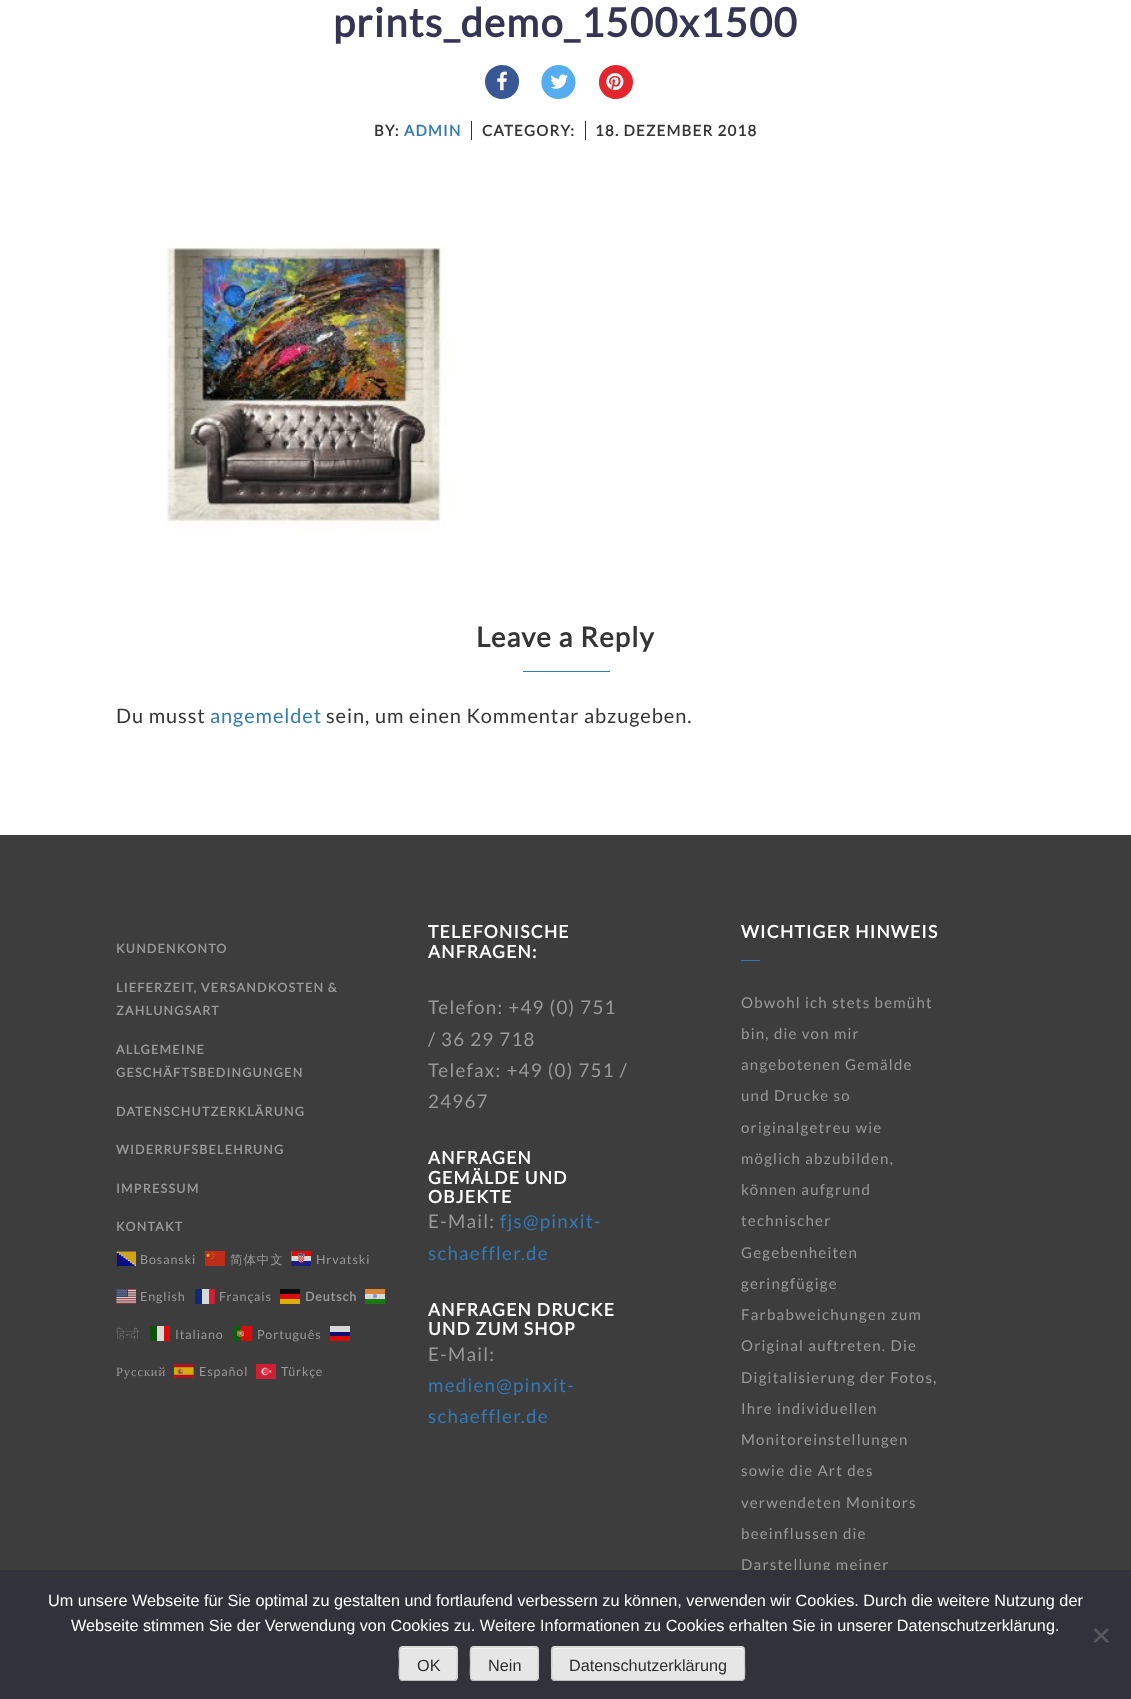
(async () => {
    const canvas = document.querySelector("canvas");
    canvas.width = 1131;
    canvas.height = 1699;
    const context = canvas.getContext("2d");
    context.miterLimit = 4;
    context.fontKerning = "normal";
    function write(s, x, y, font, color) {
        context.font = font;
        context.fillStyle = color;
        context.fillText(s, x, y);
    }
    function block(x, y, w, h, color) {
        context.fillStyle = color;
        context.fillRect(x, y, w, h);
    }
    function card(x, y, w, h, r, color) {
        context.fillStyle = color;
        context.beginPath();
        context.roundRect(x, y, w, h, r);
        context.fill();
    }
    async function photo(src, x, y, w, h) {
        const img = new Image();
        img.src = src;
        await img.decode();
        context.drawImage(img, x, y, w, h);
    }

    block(0, 0, 1131, 1699, "rgb(255, 255, 255)");
    context.letterSpacing = "1.25px";
    write("prints_demo_1500x1500", 333, 37, "bold 40px Lato", "rgb(53, 53, 83)");
    context.fillStyle = "rgb(58, 87, 149)";
    context.beginPath();
    context.moveTo(517, 73.5);
    context.bezierCurveTo(518.5, 76.5, 519.5, 79.5, 519, 83);
    context.bezierCurveTo(518, 100, 495.5, 105, 487.5, 90.5);
    context.bezierCurveTo(485.5, 87.5, 485, 84, 485, 81);
    context.bezierCurveTo(486, 64, 508.5, 59, 517, 73.5);
    context.closePath();
    context.fill();
    await photo("media/1.png", 497, 71, 10, 20);
    context.fillStyle = "rgb(85, 172, 238)";
    context.beginPath();
    context.moveTo(573, 73.5);
    context.bezierCurveTo(575, 76.5, 575.5, 79.5, 575.5, 83);
    context.bezierCurveTo(574.5, 100, 552, 105, 543.5, 90.5);
    context.bezierCurveTo(542, 87.5, 541, 84, 541.5, 81);
    context.bezierCurveTo(542.5, 64, 565, 59, 573, 73.5);
    context.closePath();
    context.fill();
    await photo("media/2.png", 550, 74, 18, 15);
    context.fillStyle = "rgb(227, 38, 46)";
    context.beginPath();
    context.moveTo(630.5, 73.5);
    context.bezierCurveTo(632.5, 76.5, 633, 79.5, 633, 83);
    context.bezierCurveTo(632, 100, 609.5, 105, 601, 90.5);
    context.bezierCurveTo(599.5, 87.5, 598.5, 84, 599, 81);
    context.bezierCurveTo(600, 64, 622.5, 59, 630.5, 73.5);
    context.closePath();
    context.fill();
    await photo("media/3.png", 606, 73, 18, 18);
    write("BY:", 374, 136, "bold 15px Lato", "rgb(53, 53, 53)");
    write("ADMIN", 404, 136, "bold 15px Lato", "rgb(51, 122, 183)");
    block(471, 121, 1, 19, "rgb(53, 53, 53)");
    write("CATEGORY:", 482, 136, "bold 15px Lato", "rgb(53, 53, 53)");
    block(585, 121, 1, 19, "rgb(53, 53, 53)");
    write("18. DEZEMBER 2018", 595, 136, "bold 15px Lato", "rgb(53, 53, 53)");
    await photo("media/4.png", 164, 245, 287, 288);
    write("Leave a Reply", 476, 647, "bold 27.5px Lato", "rgb(53, 53, 53)");
    block(523, 671, 87, 1, "rgb(51, 122, 183)");
    context.letterSpacing = "0.9px";
    write("Du musst", 116, 723, "20px Lato", "rgb(53, 53, 53)");
    write("angemeldet", 210, 723, "20px Lato", "rgb(51, 122, 183)");
    write("sein, um einen Kommentar abzugeben.", 326, 723, "20px Lato", "rgb(53, 53, 53)");
    block(0, 835, 1131, 735, "rgb(61, 61, 61)");
    context.letterSpacing = "1.25px";
    write("KUNDENKONTO", 116, 953, "bold 12.5px Lato", "rgb(153, 153, 153)");
    write("LIEFERZEIT, VERSANDKOSTEN &", 116, 992, "bold 12.5px Lato", "rgb(153, 153, 153)");
    write("ZAHLUNGSART", 116, 1015, "bold 12.5px Lato", "rgb(153, 153, 153)");
    write("ALLGEMEINE", 116, 1054, "bold 12.5px Lato", "rgb(153, 153, 153)");
    write("GESCHÄFTSBEDINGUNGEN", 116, 1077, "bold 12.5px Lato", "rgb(153, 153, 153)");
    write("DATENSCHUTZERKLÄRUNG", 116, 1116, "bold 12.5px Lato", "rgb(153, 153, 153)");
    write("WIDERRUFSBELEHRUNG", 116, 1154, "bold 12.5px Lato", "rgb(153, 153, 153)");
    write("IMPRESSUM", 116, 1193, "bold 12.5px Lato", "rgb(153, 153, 153)");
    write("KONTAKT", 116, 1231, "bold 12.5px Lato", "rgb(153, 153, 153)");
    await photo("media/5.png", 116, 1251, 20, 15);
    context.letterSpacing = "0.9px";
    write("Bosanski", 140, 1264, "12.5px Lato", "rgb(153, 153, 153)");
    await photo("media/6.png", 205, 1251, 20, 15);
    write("简体中文", 230, 1264, "500 12.5px WenQuanYi Zen Hei", "rgb(153, 153, 153)");
    await photo("media/7.png", 291, 1251, 20, 15);
    write("Hrvatski", 316, 1264, "12.5px Lato", "rgb(153, 153, 153)");
    await photo("media/8.png", 116, 1289, 20, 15);
    write("English", 140, 1301, "12.5px Lato", "rgb(153, 153, 153)");
    write("Français", 219, 1301, "12.5px Lato", "rgb(153, 153, 153)");
    block(202, 1289, 7, 15, "rgb(216, 216, 216)");
    block(195, 1289, 7, 15, "rgb(12, 43, 114)");
    block(209, 1289, 6, 15, "rgb(207, 31, 51)");
    write("Deutsch", 305, 1301, "bold 12.5px Lato", "rgb(153, 153, 153)");
    block(280, 1299, 20, 5, "rgb(216, 175, 12)");
    block(280, 1289, 20, 5, "rgb(12, 12, 12)");
    block(280, 1294, 20, 5, "rgb(216, 12, 12)");
    await photo("media/9.png", 365, 1289, 20, 15);
    write("हिन्दी", 116, 1339, "100 12.5px Noto Sans", "rgb(153, 153, 153)");
    write("Italiano", 175, 1339, "12.5px Lato", "rgb(153, 153, 153)");
    block(157, 1326, 7, 15, "rgb(216, 216, 216)");
    block(150, 1326, 7, 15, "rgb(12, 82, 12)");
    block(164, 1326, 6, 15, "rgb(214, 12, 12)");
    await photo("media/10.png", 233, 1326, 20, 15);
    write("Português", 257, 1339, "12.5px Lato", "rgb(153, 153, 153)");
    write("Русский", 116, 1376, "12.5px Liberation Serif", "rgb(153, 153, 153)");
    block(330, 1326, 20, 6, "rgb(216, 216, 216)");
    block(330, 1332, 20, 4, "rgb(13, 13, 113)");
    block(330, 1336, 20, 5, "rgb(215, 13, 13)");
    await photo("media/11.png", 174, 1364, 20, 15);
    write("Español", 199, 1376, "12.5px Lato", "rgb(153, 153, 153)");
    await photo("media/12.png", 256, 1364, 20, 15);
    write("Türkçe", 281, 1376, "12.5px Lato", "rgb(153, 153, 153)");
    context.letterSpacing = "1.25px";
    write("TELEFONISCHE", 428, 938, "bold 17.5px Lato", "rgb(255, 255, 255)");
    write("ANFRAGEN:", 428, 958, "bold 17.5px Lato", "rgb(255, 255, 255)");
    write("Telefon: +49 (0) 751", 428, 1014, "18.75px Lato", "rgb(153, 153, 153)");
    write("/ 36 29 718", 428, 1046, "18.75px Lato", "rgb(153, 153, 153)");
    write("Telefax: +49 (0) 751 /", 428, 1077, "18.75px Lato", "rgb(153, 153, 153)");
    write("24967", 428, 1108, "18.75px Lato", "rgb(153, 153, 153)");
    write("ANFRAGEN", 428, 1164, "bold 17.5px Lato", "rgb(255, 255, 255)");
    write("GEMÄLDE UND", 428, 1184, "bold 17.5px Lato", "rgb(255, 255, 255)");
    write("OBJEKTE", 428, 1203, "bold 17.5px Lato", "rgb(255, 255, 255)");
    write("E-Mail:", 428, 1228, "18.75px Lato", "rgb(153, 153, 153)");
    write("fjs@pinxit-", 500, 1228, "18.75px Lato", "rgb(51, 122, 183)");
    write("schaeffler.de", 428, 1260, "18.75px Lato", "rgb(51, 122, 183)");
    write("ANFRAGEN DRUCKE", 428, 1316, "bold 17.5px Lato", "rgb(255, 255, 255)");
    write("UND ZUM SHOP", 428, 1335, "bold 17.5px Lato", "rgb(255, 255, 255)");
    write("E-Mail:", 428, 1361, "18.75px Lato", "rgb(153, 153, 153)");
    write("medien@pinxit-", 428, 1392, "18.75px Lato", "rgb(51, 122, 183)");
    write("schaeffler.de", 428, 1423, "18.75px Lato", "rgb(51, 122, 183)");
    write("WICHTIGER HINWEIS", 741, 938, "bold 17.5px Lato", "rgb(255, 255, 255)");
    block(741, 960, 19, 1, "rgb(51, 122, 183)");
    write("Obwohl ich stets bemüht", 741, 1008, "15px Lato", "rgb(153, 153, 153)");
    write("bin, die von mir", 741, 1039, "15px Lato", "rgb(153, 153, 153)");
    write("angebotenen Gemälde", 741, 1070, "15px Lato", "rgb(153, 153, 153)");
    write("und Drucke so", 741, 1101, "15px Lato", "rgb(153, 153, 153)");
    write("originalgetreu wie", 741, 1133, "15px Lato", "rgb(153, 153, 153)");
    write("möglich abzubilden,", 741, 1164, "15px Lato", "rgb(153, 153, 153)");
    write("können aufgrund", 741, 1195, "15px Lato", "rgb(153, 153, 153)");
    write("technischer", 741, 1226, "15px Lato", "rgb(153, 153, 153)");
    write("Gegebenheiten", 741, 1258, "15px Lato", "rgb(153, 153, 153)");
    write("geringfügige", 741, 1289, "15px Lato", "rgb(153, 153, 153)");
    write("Farbabweichungen zum", 741, 1320, "15px Lato", "rgb(153, 153, 153)");
    write("Original auftreten. Die", 741, 1351, "15px Lato", "rgb(153, 153, 153)");
    write("Digitalisierung der Fotos,", 741, 1383, "15px Lato", "rgb(153, 153, 153)");
    write("Ihre individuellen", 741, 1414, "15px Lato", "rgb(153, 153, 153)");
    write("Monitoreinstellungen", 741, 1445, "15px Lato", "rgb(153, 153, 153)");
    write("sowie die Art des", 741, 1476, "15px Lato", "rgb(153, 153, 153)");
    write("verwendeten Monitors", 741, 1508, "15px Lato", "rgb(153, 153, 153)");
    write("beeinflussen die", 741, 1539, "15px Lato", "rgb(153, 153, 153)");
    write("Darstellung meiner", 741, 1570, "15px Lato", "rgb(153, 153, 153)");
    block(0, 1570, 1131, 129, "rgb(50, 50, 58)");
    context.letterSpacing = "0px";
    write("Um unsere Webseite für Sie optimal zu gestalten und fortlaufend verbessern zu können, verwenden wir Cookies. Durch die weitere Nutzung der", 48, 1606, "16.25px Liberation Sans", "rgb(255, 255, 255)");
    write("Webseite stimmen Sie der Verwendung von Cookies zu. Weitere Informationen zu Cookies erhalten Sie in unserer Datenschutzerklärung.", 71, 1631, "16.25px Liberation Sans", "rgb(255, 255, 255)");
    context.fillStyle = "rgb(89, 89, 93)";
    context.beginPath();
    context.moveTo(1107, 1628);
    context.lineTo(1109, 1630);
    context.lineTo(1095.5, 1643);
    context.lineTo(1093.5, 1641.5);
    context.closePath();
    context.fill();
    context.beginPath();
    context.moveTo(1093.5, 1630);
    context.lineTo(1095.5, 1628);
    context.lineTo(1109, 1641.5);
    context.lineTo(1107, 1643);
    context.closePath();
    context.fill();
    card(399, 1646, 59, 35, 4, "rgb(230, 230, 230)");
    context.fillStyle = "rgb(243, 243, 243)";
    context.beginPath();
    context.moveTo(402, 1649);
    context.lineTo(454, 1649);
    context.bezierCurveTo(455, 1649, 456, 1650, 456, 1651);
    context.bezierCurveTo(456, 1646, 447, 1648, 445, 1648);
    context.lineTo(411, 1648);
    context.bezierCurveTo(409, 1648, 400, 1646, 400, 1651);
    context.bezierCurveTo(400, 1650, 401, 1649, 402, 1649);
    context.closePath();
    context.fill();
    context.beginPath();
    context.moveTo(456, 1679.5);
    context.lineTo(454, 1680.5);
    context.lineTo(402, 1680.5);
    context.lineTo(400.5, 1679.5);
    context.strokeStyle = "rgb(187, 187, 187)";
    context.lineWidth = 1.2;
    context.stroke();
    context.beginPath();
    context.moveTo(400.5, 1679.5);
    context.bezierCurveTo(398, 1677.5, 399.5, 1666.5, 399.5, 1664);
    context.bezierCurveTo(399.5, 1646.5, 395.5, 1647, 411, 1647);
    context.lineTo(445, 1647);
    context.bezierCurveTo(460.5, 1647, 457, 1646.5, 457, 1664);
    context.bezierCurveTo(457, 1666.5, 458, 1677.5, 456, 1679.5);
    context.strokeStyle = "rgb(204, 204, 204)";
    context.stroke();
    write("OK", 417, 1671, "16.25px Liberation Sans", "rgb(46, 46, 46)");
    card(470, 1646, 69, 35, 4, "rgb(230, 230, 230)");
    context.fillStyle = "rgb(243, 243, 243)";
    context.beginPath();
    context.moveTo(474, 1649);
    context.lineTo(535, 1649);
    context.bezierCurveTo(536, 1649, 538, 1650, 538, 1651);
    context.bezierCurveTo(538, 1645, 527, 1648, 525, 1648);
    context.lineTo(484, 1648);
    context.bezierCurveTo(482, 1648, 471, 1645, 471, 1651);
    context.bezierCurveTo(471, 1650, 472, 1649, 474, 1649);
    context.closePath();
    context.fill();
    context.beginPath();
    context.moveTo(537, 1679.5);
    context.lineTo(535.5, 1680.5);
    context.lineTo(473.5, 1680.5);
    context.lineTo(471.5, 1679.5);
    context.strokeStyle = "rgb(187, 187, 187)";
    context.stroke();
    context.beginPath();
    context.moveTo(471.5, 1679.5);
    context.bezierCurveTo(469.5, 1677.5, 470.5, 1666.5, 470.5, 1664);
    context.bezierCurveTo(470.5, 1645.5, 467, 1647, 484, 1647);
    context.lineTo(525, 1647);
    context.bezierCurveTo(542, 1647, 538, 1645.5, 538, 1664);
    context.bezierCurveTo(538, 1666.5, 539.5, 1677.5, 537, 1679.5);
    context.strokeStyle = "rgb(204, 204, 204)";
    context.stroke();
    write("Nein", 488, 1671, "16.25px Liberation Sans", "rgb(46, 46, 46)");
    card(551, 1646, 194, 35, 4, "rgb(230, 230, 230)");
    context.fillStyle = "rgb(243, 243, 243)";
    context.beginPath();
    context.moveTo(555, 1649);
    context.lineTo(741, 1649);
    context.bezierCurveTo(743, 1649, 744, 1650, 744, 1651);
    context.lineTo(744, 1650);
    context.bezierCurveTo(744, 1649, 743, 1648, 742, 1648);
    context.lineTo(556, 1648);
    context.bezierCurveTo(554, 1648, 554, 1649, 553, 1650);
    context.closePath();
    context.fill();
    context.beginPath();
    context.moveTo(743.5, 1679.5);
    context.lineTo(741, 1680.5);
    context.lineTo(555, 1680.5);
    context.lineTo(553, 1679.5);
    context.strokeStyle = "rgb(187, 187, 187)";
    context.stroke();
    context.beginPath();
    context.moveTo(553, 1679.5);
    context.bezierCurveTo(550.5, 1677.5, 552, 1666.5, 552, 1664);
    context.lineTo(552, 1654.5);
    context.bezierCurveTo(552, 1652, 551, 1647, 555, 1647);
    context.lineTo(741, 1647);
    context.bezierCurveTo(745.5, 1647, 744.5, 1652, 744.5, 1654.5);
    context.lineTo(744.5, 1664);
    context.bezierCurveTo(744.5, 1666.5, 745.5, 1677.5, 743.5, 1679.5);
    context.strokeStyle = "rgb(204, 204, 204)";
    context.stroke();
    write("Datenschutzerklärung", 569, 1671, "16.25px Liberation Sans", "rgb(46, 46, 46)");
})();
